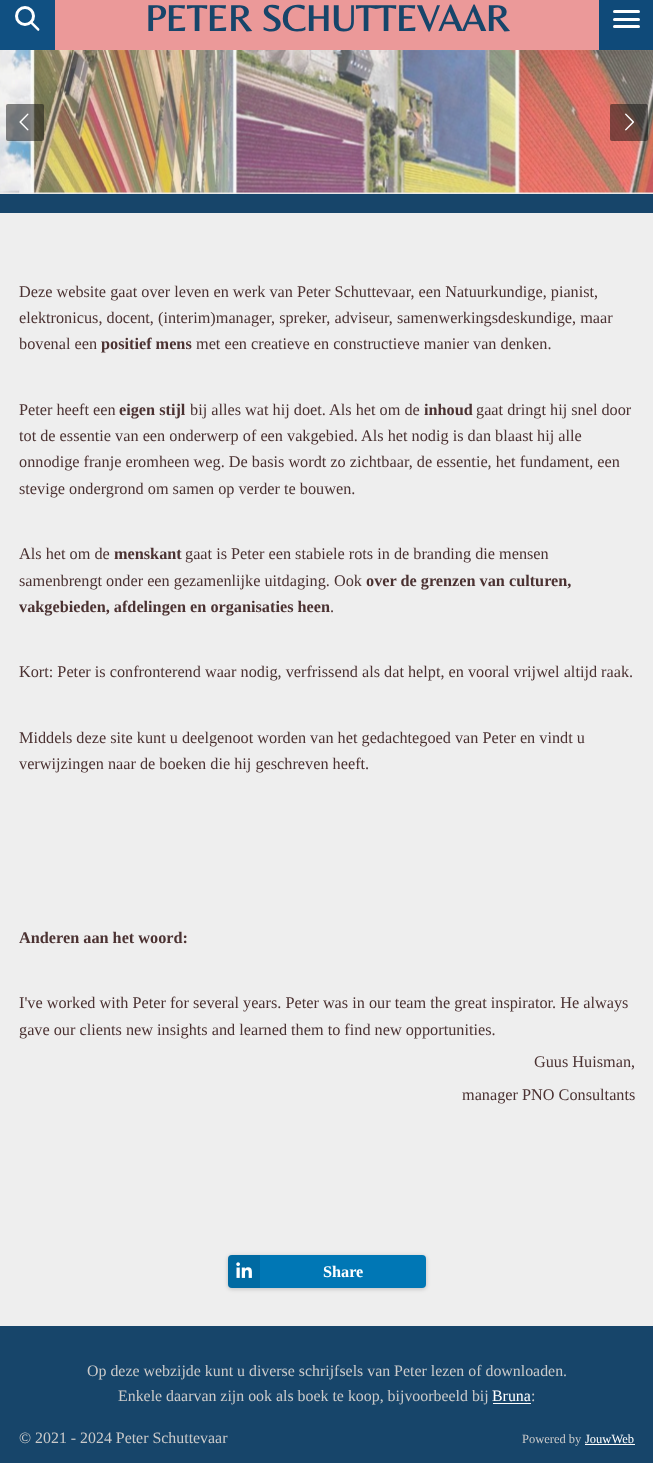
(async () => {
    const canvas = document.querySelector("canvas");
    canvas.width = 653;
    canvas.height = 1463;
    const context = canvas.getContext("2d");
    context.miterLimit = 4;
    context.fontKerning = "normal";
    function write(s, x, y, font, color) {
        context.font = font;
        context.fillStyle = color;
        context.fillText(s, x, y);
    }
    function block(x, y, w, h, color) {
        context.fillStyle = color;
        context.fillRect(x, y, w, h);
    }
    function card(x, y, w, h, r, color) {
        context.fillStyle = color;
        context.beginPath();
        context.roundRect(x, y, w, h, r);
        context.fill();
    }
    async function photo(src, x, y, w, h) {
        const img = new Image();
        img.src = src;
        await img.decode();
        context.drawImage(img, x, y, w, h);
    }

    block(0, 0, 653, 1463, "rgb(238, 238, 238)");
    block(0, 0, 55, 50, "rgb(16, 80, 130)");
    context.beginPath();
    context.arc(25, 16, 8.5, 0, Math.PI * 2);
    context.strokeStyle = "rgb(255, 255, 255)";
    context.lineWidth = 3;
    context.stroke();
    context.fillStyle = "rgb(255, 255, 255)";
    context.beginPath();
    context.moveTo(31, 20.5);
    context.lineTo(39, 28.5);
    context.bezierCurveTo(39.5, 29, 39.5, 30, 39, 30.5);
    context.bezierCurveTo(38.5, 31, 38, 31, 37.5, 30.5);
    context.lineTo(29.5, 22.5);
    context.closePath();
    context.fill();
    block(55, 0, 544, 50, "rgb(235, 153, 153)");
    write("PETER SCHUTTEVAAR", 145, 31, "bold 37.5px Belleza", "rgb(23, 69, 106)");
    block(599, 0, 54, 50, "rgb(15, 74, 121)");
    card(613, 18, 27, 3, 1.5, "rgb(255, 255, 255)");
    card(613, 10, 27, 3, 1.5, "rgb(255, 255, 255)");
    card(613, 25, 27, 3, 1.5, "rgb(255, 255, 255)");
    await photo("media/1.png", 0, 50, 653, 144);
    card(6, 104, 38, 37, 2, "rgba(15, 15, 15, 0.5)");
    await photo("media/2.png", 19, 113, 10, 18);
    card(610, 104, 38, 37, 2, "rgba(15, 15, 15, 0.5)");
    await photo("media/3.png", 625, 113, 10, 18);
    block(0, 194, 653, 19, "rgb(23, 69, 106)");
    write("Deze website gaat over leven en werk van Peter Schuttevaar, een Natuurkundige, pianist,", 19, 297, "16.25px Liberation Serif", "rgb(75, 50, 50)");
    write("elektronicus, docent, (interim)manager, spreker, adviseur, samenwerkingsdeskundige, maar", 19, 323, "16.25px Liberation Serif", "rgb(75, 50, 50)");
    write("bovenal een", 19, 349, "16.25px Liberation Serif", "rgb(75, 50, 50)");
    write("positief mens", 101, 349, "bold 16.25px Liberation Serif", "rgb(75, 50, 50)");
    write("met een creatieve en constructieve manier van denken.", 196, 349, "16.25px Liberation Serif", "rgb(75, 50, 50)");
    write("Peter heeft een", 19, 415, "16.25px Liberation Serif", "rgb(75, 50, 50)");
    write("eigen stijl", 119, 415, "bold 16.25px Liberation Serif", "rgb(75, 50, 50)");
    write("bij alles wat hij doet. Als het om de", 190, 415, "16.25px Liberation Serif", "rgb(75, 50, 50)");
    write("inhoud", 424, 415, "bold 16.25px Liberation Serif", "rgb(75, 50, 50)");
    write("gaat dringt hij snel door", 476, 415, "16.25px Liberation Serif", "rgb(75, 50, 50)");
    write("tot de essentie van een onderwerp of een vakgebied. Als het nodig is dan blaast hij alle", 19, 441, "16.25px Liberation Serif", "rgb(75, 50, 50)");
    write("onnodige franje eromheen weg. De basis wordt zo zichtbaar, de essentie, het fundament, een", 19, 467, "16.25px Liberation Serif", "rgb(75, 50, 50)");
    write("stevige ondergrond om samen op verder te bouwen.", 19, 494, "16.25px Liberation Serif", "rgb(75, 50, 50)");
    write("Als het om de", 19, 559, "16.25px Liberation Serif", "rgb(75, 50, 50)");
    write("menskant", 114, 559, "bold 16.25px Liberation Serif", "rgb(75, 50, 50)");
    write("gaat is Peter een stabiele rots in de branding die mensen", 185, 559, "16.25px Liberation Serif", "rgb(75, 50, 50)");
    write("samenbrengt onder een gezamenlijke uitdaging. Ook", 19, 586, "16.25px Liberation Serif", "rgb(75, 50, 50)");
    write("over de grenzen van culturen,", 366, 586, "bold 16.25px Liberation Serif", "rgb(75, 50, 50)");
    write("vakgebieden, afdelingen en organisaties heen", 19, 612, "bold 16.25px Liberation Serif", "rgb(75, 50, 50)");
    write(".", 330, 612, "16.25px Liberation Serif", "rgb(75, 50, 50)");
    write("Kort: Peter is confronterend waar nodig, verfrissend als dat helpt, en vooral vrijwel altijd raak.", 19, 677, "16.25px Liberation Serif", "rgb(75, 50, 50)");
    write("Middels deze site kunt u deelgenoot worden van het gedachtegoed van Peter en vindt u", 19, 743, "16.25px Liberation Serif", "rgb(75, 50, 50)");
    write("verwijzingen naar de boeken die hij geschreven heeft.", 19, 769, "16.25px Liberation Serif", "rgb(75, 50, 50)");
    write("Anderen aan het woord:", 19, 943, "bold 16.25px Liberation Serif", "rgb(75, 50, 50)");
    write("I've worked with Peter for several years. Peter was in our team the great inspirator. He always", 19, 1008, "16.25px Liberation Serif", "rgb(75, 50, 50)");
    write("gave our clients new insights and learned them to find new opportunities.", 19, 1035, "16.25px Liberation Serif", "rgb(75, 50, 50)");
    write("Guus Huisman,", 534, 1067, "16.25px Liberation Serif", "rgb(75, 50, 50)");
    write("manager PNO Consultants", 462, 1100, "16.25px Liberation Serif", "rgb(75, 50, 50)");
    context.fillStyle = "rgba(0, 0, 0, 0.2)";
    context.filter = "blur(2px)";
    context.beginPath();
    context.roundRect(228, 1256, 198, 33, 4);
    context.fill();
    context.filter = "none";
    card(228, 1255, 198, 33, 4, "rgb(0, 119, 181)");
    context.fillStyle = "rgba(0, 0, 0, 0.1)";
    context.beginPath();
    context.roundRect(228, 1255, 32, 33, [4, 0, 0, 4]);
    context.fill();
    await photo("media/4.png", 236, 1262, 16, 16);
    write("Share", 323, 1277, "bold 16.25px Liberation Serif", "rgb(255, 255, 255)");
    block(0, 1326, 653, 137, "rgb(23, 69, 106)");
    write("Op deze webzijde kunt u diverse schrijfsels van Peter lezen of downloaden.", 87, 1376, "15.9px Liberation Serif", "rgb(202, 202, 202)");
    write("Enkele daarvan zijn ook als boek te koop, bijvoorbeeld bij", 118, 1401, "15.9px Liberation Serif", "rgb(202, 202, 202)");
    write("Bruna", 492, 1401, "15.9px Liberation Serif", "rgb(255, 255, 255)");
    block(493, 1403, 38, 1, "rgb(255, 255, 255)");
    write(":", 531, 1401, "15.9px Liberation Serif", "rgb(202, 202, 202)");
    write("© 2021 - 2024 Peter Schuttevaar", 19, 1443, "15.9px Liberation Serif", "rgb(202, 202, 202)");
    write("Powered by", 522, 1443, "12.5px Liberation Serif", "rgb(202, 202, 202)");
    block(585, 1444, 50, 1, "rgb(255, 255, 255)");
    write("JouwWeb", 585, 1443, "12.5px Liberation Serif", "rgb(255, 255, 255)");
})();
